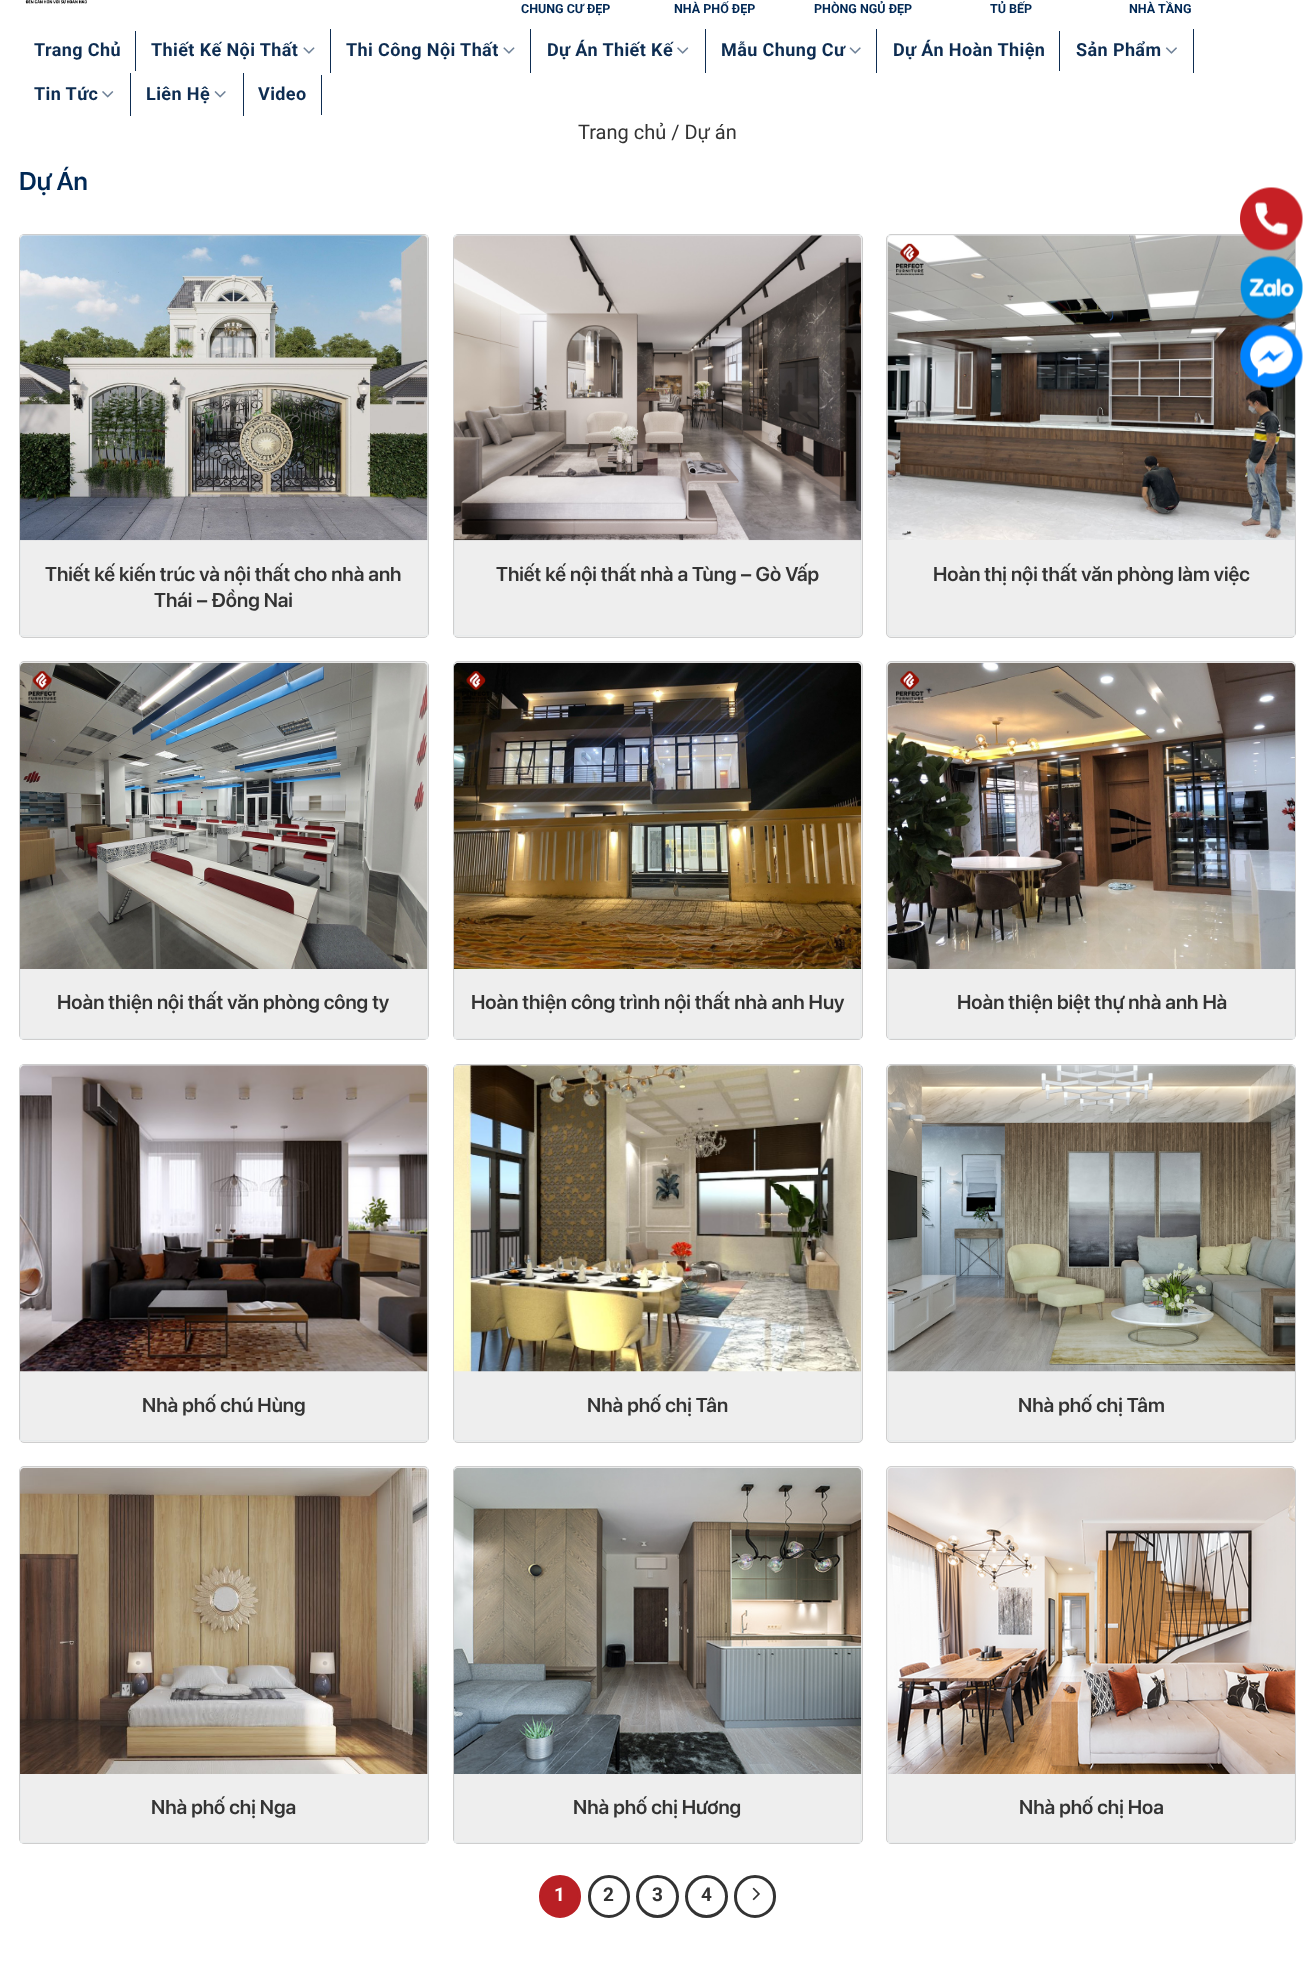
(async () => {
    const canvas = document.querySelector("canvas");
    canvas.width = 1314;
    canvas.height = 1962;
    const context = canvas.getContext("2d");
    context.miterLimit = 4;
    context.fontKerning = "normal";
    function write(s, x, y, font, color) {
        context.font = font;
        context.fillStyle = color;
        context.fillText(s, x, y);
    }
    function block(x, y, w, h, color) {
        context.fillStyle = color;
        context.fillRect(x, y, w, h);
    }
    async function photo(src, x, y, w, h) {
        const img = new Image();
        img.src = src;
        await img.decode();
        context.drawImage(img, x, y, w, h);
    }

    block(0, 0, 1314, 1962, "rgb(255, 255, 255)");
    await photo("media/1.png", 25, 0, 62, 4);
    write("CHUNG CƯ ĐẸP", 521, 13, "bold 12.5px Roboto", "rgb(0, 40, 85)");
    write("NHÀ PHỐ ĐẸP", 674, 13, "bold 12.5px Roboto", "rgb(0, 40, 85)");
    write("PHÒNG NGỦ ĐẸP", 814, 13, "bold 12.5px Roboto", "rgb(0, 40, 85)");
    write("TỦ BẾP", 990, 13, "bold 12.5px Roboto", "rgb(0, 40, 85)");
    write("NHÀ TẦNG", 1129, 13, "bold 12.5px Roboto", "rgb(0, 40, 85)");
    block(135, 31, 1, 40, "rgb(14, 45, 82)");
    context.letterSpacing = "0.4px";
    write("Trang Chủ", 34, 56, "bold 18px Roboto", "rgb(14, 45, 82)");
    block(330, 29, 1, 44, "rgb(14, 45, 82)");
    write("Thiết Kế Nội Thất", 151, 56, "bold 18px Roboto", "rgb(14, 45, 82)");
    await photo("media/2.png", 303, 47, 12, 7);
    block(530, 29, 1, 44, "rgb(14, 45, 82)");
    write("Thi Công Nội Thất", 346, 56, "bold 18px Roboto", "rgb(14, 45, 82)");
    await photo("media/2.png", 503, 47, 12, 7);
    block(705, 29, 1, 44, "rgb(14, 45, 82)");
    write("Dự Án Thiết Kế", 547, 56, "bold 18px Roboto", "rgb(14, 45, 82)");
    await photo("media/3.png", 677, 47, 12, 7);
    block(876, 29, 1, 44, "rgb(14, 45, 82)");
    write("Mẫu Chung Cư", 721, 56, "bold 18px Roboto", "rgb(14, 45, 82)");
    await photo("media/4.png", 849, 47, 12, 7);
    block(1059, 31, 1, 40, "rgb(14, 45, 82)");
    write("Dự Án Hoàn Thiện", 893, 56, "bold 18px Roboto", "rgb(14, 45, 82)");
    block(1193, 29, 1, 44, "rgb(14, 45, 82)");
    write("Sản Phẩm", 1076, 56, "bold 18px Roboto", "rgb(14, 45, 82)");
    await photo("media/5.png", 1165, 47, 12, 7);
    block(130, 73, 1, 43, "rgb(14, 45, 82)");
    write("Tin Tức", 34, 100, "bold 18px Roboto", "rgb(14, 45, 82)");
    await photo("media/6.png", 102, 91, 12, 7);
    block(243, 73, 1, 43, "rgb(14, 45, 82)");
    write("Liên Hệ", 146, 100, "bold 18px Roboto", "rgb(14, 45, 82)");
    await photo("media/7.png", 214, 91, 12, 7);
    block(321, 75, 1, 40, "rgb(14, 45, 82)");
    write("Video", 258, 100, "bold 18px Roboto", "rgb(14, 45, 82)");
    context.letterSpacing = "0px";
    write("Trang chủ / Dự án", 578, 139, "20px Roboto", "rgb(51, 51, 51)");
    write("Dự Án", 19, 190, "600 25.5px SF Pro Display", "rgb(0, 40, 85)");
    context.fillStyle = "rgb(238, 238, 238)";
    context.beginPath();
    context.roundRect(19.5, 234.5, 409, 403, 4.5);
    context.fill();
    context.strokeStyle = "rgb(206, 206, 206)";
    context.stroke();
    context.strokeStyle = "rgb(232, 235, 236)";
    context.strokeRect(20.5, 235.5, 407, 400);
    await photo("media/8.png", 20, 235, 408, 306);
    write("Thiết kế kiến trúc và nội thất cho nhà anh", 45, 581, "600 20px SF Pro Display", "rgb(51, 51, 51)");
    write("Thái – Đồng Nai", 154, 607, "600 20px SF Pro Display", "rgb(51, 51, 51)");
    context.fillStyle = "rgb(238, 238, 238)";
    context.beginPath();
    context.roundRect(453.5, 234.5, 409, 403, 4.5);
    context.fill();
    context.strokeStyle = "rgb(206, 206, 206)";
    context.stroke();
    context.strokeStyle = "rgb(232, 235, 236)";
    context.strokeRect(454.5, 235.5, 406, 400);
    await photo("media/9.png", 453, 235, 409, 306);
    write("Thiết kế nội thất nhà a Tùng – Gò Vấp", 496, 581, "600 20px SF Pro Display", "rgb(51, 51, 51)");
    context.fillStyle = "rgb(238, 238, 238)";
    context.beginPath();
    context.roundRect(886.5, 234.5, 409, 403, 4.5);
    context.fill();
    context.strokeStyle = "rgb(206, 206, 206)";
    context.stroke();
    context.strokeStyle = "rgb(232, 235, 236)";
    context.strokeRect(888.5, 235.5, 406, 400);
    await photo("media/10.png", 887, 235, 408, 305);
    write("Hoàn thị nội thất văn phòng làm việc", 933, 581, "600 20px SF Pro Display", "rgb(51, 51, 51)");
    context.fillStyle = "rgb(238, 238, 238)";
    context.beginPath();
    context.roundRect(19.5, 661.5, 409, 378, 4.5);
    context.fill();
    context.strokeStyle = "rgb(206, 206, 206)";
    context.stroke();
    context.strokeStyle = "rgb(232, 235, 236)";
    context.strokeRect(20.5, 663.5, 407, 375);
    await photo("media/11.png", 20, 662, 408, 307);
    write("Hoàn thiện nội thất văn phòng công ty", 57, 1009, "600 20px SF Pro Display", "rgb(51, 51, 51)");
    context.fillStyle = "rgb(238, 238, 238)";
    context.beginPath();
    context.roundRect(453.5, 661.5, 409, 378, 4.5);
    context.fill();
    context.strokeStyle = "rgb(206, 206, 206)";
    context.stroke();
    context.strokeStyle = "rgb(232, 235, 236)";
    context.strokeRect(454.5, 663.5, 406, 375);
    await photo("media/12.png", 453, 662, 409, 307);
    write("Hoàn thiện công trình nội thất nhà anh Huy", 471, 1009, "600 20px SF Pro Display", "rgb(51, 51, 51)");
    context.fillStyle = "rgb(238, 238, 238)";
    context.beginPath();
    context.roundRect(886.5, 661.5, 409, 378, 4.5);
    context.fill();
    context.strokeStyle = "rgb(206, 206, 206)";
    context.stroke();
    context.strokeStyle = "rgb(232, 235, 236)";
    context.strokeRect(888.5, 663.5, 406, 375);
    await photo("media/13.png", 887, 662, 408, 307);
    write("Hoàn thiện biệt thự nhà anh Hà", 957, 1009, "600 20px SF Pro Display", "rgb(51, 51, 51)");
    context.fillStyle = "rgb(238, 238, 238)";
    context.beginPath();
    context.roundRect(19.5, 1064.5, 409, 378, 4.5);
    context.fill();
    context.strokeStyle = "rgb(206, 206, 206)";
    context.stroke();
    context.strokeStyle = "rgb(232, 235, 236)";
    context.strokeRect(20.5, 1065.5, 407, 375);
    await photo("media/14.png", 20, 1065, 408, 307);
    write("Nhà phố chú Hùng", 142, 1412, "600 20px SF Pro Display", "rgb(51, 51, 51)");
    context.fillStyle = "rgb(238, 238, 238)";
    context.beginPath();
    context.roundRect(453.5, 1064.5, 409, 378, 4.5);
    context.fill();
    context.strokeStyle = "rgb(206, 206, 206)";
    context.stroke();
    context.strokeStyle = "rgb(232, 235, 236)";
    context.strokeRect(454.5, 1065.5, 406, 375);
    await photo("media/15.png", 454, 1065, 407, 307);
    write("Nhà phố chị Tân", 587, 1412, "600 20px SF Pro Display", "rgb(51, 51, 51)");
    context.fillStyle = "rgb(238, 238, 238)";
    context.beginPath();
    context.roundRect(886.5, 1064.5, 409, 378, 4.5);
    context.fill();
    context.strokeStyle = "rgb(206, 206, 206)";
    context.stroke();
    context.strokeStyle = "rgb(232, 235, 236)";
    context.strokeRect(888.5, 1065.5, 406, 375);
    await photo("media/16.png", 887, 1065, 408, 307);
    write("Nhà phố chị Tâm", 1018, 1412, "600 20px SF Pro Display", "rgb(51, 51, 51)");
    context.fillStyle = "rgb(238, 238, 238)";
    context.beginPath();
    context.roundRect(19.5, 1466.5, 409, 377, 4.5);
    context.fill();
    context.strokeStyle = "rgb(206, 206, 206)";
    context.stroke();
    context.strokeStyle = "rgb(232, 235, 236)";
    context.strokeRect(20.5, 1468.5, 407, 374);
    await photo("media/17.png", 20, 1467, 408, 307);
    write("Nhà phố chị Nga", 151, 1814, "600 20px SF Pro Display", "rgb(51, 51, 51)");
    context.fillStyle = "rgb(238, 238, 238)";
    context.beginPath();
    context.roundRect(453.5, 1466.5, 409, 377, 4.5);
    context.fill();
    context.strokeStyle = "rgb(206, 206, 206)";
    context.stroke();
    context.strokeStyle = "rgb(232, 235, 236)";
    context.strokeRect(454.5, 1468.5, 406, 374);
    await photo("media/18.png", 453, 1467, 409, 307);
    write("Nhà phố chị Hương", 573, 1814, "600 20px SF Pro Display", "rgb(51, 51, 51)");
    context.fillStyle = "rgb(238, 238, 238)";
    context.beginPath();
    context.roundRect(886.5, 1466.5, 409, 377, 4.5);
    context.fill();
    context.strokeStyle = "rgb(206, 206, 206)";
    context.stroke();
    context.strokeStyle = "rgb(232, 235, 236)";
    context.strokeRect(888.5, 1468.5, 406, 374);
    await photo("media/19.png", 887, 1468, 408, 306);
    write("Nhà phố chị Hoa", 1019, 1814, "600 20px SF Pro Display", "rgb(51, 51, 51)");
    context.fillStyle = "rgb(185, 32, 37)";
    context.beginPath();
    context.roundRect(540.5, 1876.5, 39, 40, 19.5);
    context.fill();
    context.strokeStyle = "rgb(185, 32, 37)";
    context.lineWidth = 3;
    context.stroke();
    write("1", 554, 1901, "bold 19px Roboto", "rgb(255, 255, 255)");
    context.beginPath();
    context.roundRect(589.5, 1876.5, 39, 40, 19.5);
    context.strokeStyle = "rgb(51, 51, 51)";
    context.stroke();
    write("2", 603, 1901, "bold 19px Roboto", "rgb(51, 51, 51)");
    context.beginPath();
    context.arc(657.5, 1896.5, 20, 0, Math.PI * 2);
    context.stroke();
    write("3", 652, 1901, "bold 19px Roboto", "rgb(51, 51, 51)");
    context.beginPath();
    context.arc(706.5, 1896.5, 20, 0, Math.PI * 2);
    context.stroke();
    write("4", 701, 1901, "bold 19px Roboto", "rgb(51, 51, 51)");
    context.beginPath();
    context.roundRect(735.5, 1876.5, 39, 40, 19.5);
    context.stroke();
    await photo("media/20.png", 752, 1887, 8, 14);
    await photo("media/21.png", 1240, 187, 63, 64);
    await photo("media/22.png", 1240, 255, 63, 65);
    await photo("media/23.png", 1240, 324, 63, 64);
})();
